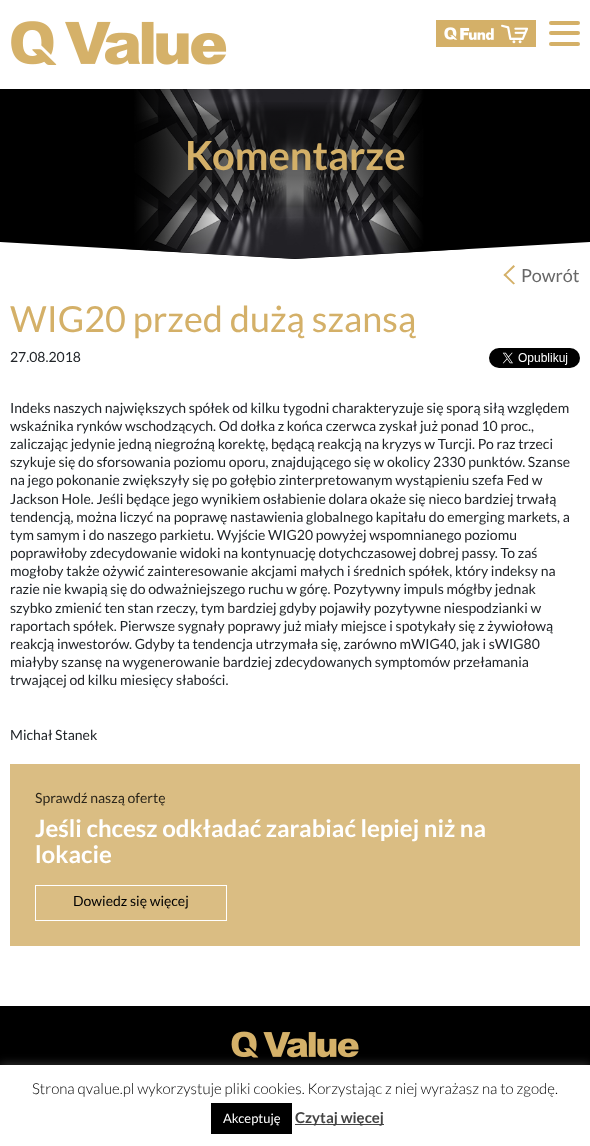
(async () => {
    const canvas = document.querySelector("canvas");
    canvas.width = 590;
    canvas.height = 1146;
    const context = canvas.getContext("2d");
    context.miterLimit = 4;
    context.fontKerning = "normal";
    function write(s, x, y, font, color) {
        context.font = font;
        context.fillStyle = color;
        context.fillText(s, x, y);
    }
    function block(x, y, w, h, color) {
        context.fillStyle = color;
        context.fillRect(x, y, w, h);
    }
    function card(x, y, w, h, r, color) {
        context.fillStyle = color;
        context.beginPath();
        context.roundRect(x, y, w, h, r);
        context.fill();
    }
    async function photo(src, x, y, w, h) {
        const img = new Image();
        img.src = src;
        await img.decode();
        context.drawImage(img, x, y, w, h);
    }
    let gradient;

    block(0, 0, 590, 1146, "rgb(255, 255, 255)");
    await photo("media/1.png", 11, 21, 216, 44);
    block(436, 20, 100, 27, "rgb(212, 176, 104)");
    await photo("media/2.png", 501, 24, 27, 20);
    await photo("media/3.png", 444, 27, 50, 13);
    card(549, 21, 31, 4, 2, "rgb(212, 176, 103)");
    card(549, 31, 31, 4, 2, "rgb(212, 176, 103)");
    card(549, 42, 31, 4, 2, "rgb(212, 176, 103)");
    context.fillStyle = "rgb(0, 0, 0)";
    context.beginPath();
    context.moveTo(0, 89);
    context.lineTo(0, 242);
    context.lineTo(295, 259);
    context.lineTo(590, 242);
    context.lineTo(590, 89);
    context.closePath();
    context.fill();
    await photo("media/4.png", 126, 89, 340, 170);
    gradient = context.createRadialGradient(295, 728.6, 0, 295, 728.6, 417);
    gradient.addColorStop(0.18, "rgba(0, 0, 0, 0.61)");
    gradient.addColorStop(0.52, "rgba(0, 0, 0, 0.46)");
    gradient.addColorStop(0.55, "rgba(0, 0, 0, 0.35)");
    gradient.addColorStop(0.65, "rgba(0, 0, 0, 0)");
    gradient.addColorStop(1, "rgba(0, 0, 0, 0)");
    context.fillStyle = gradient;
    context.beginPath();
    context.rect(136, 102, 286, 115);
    context.save();
    context.clip();
    context.scale(1, 91 / 417);
    context.fillRect(0, 0, 590, 5252);
    context.restore();
    write("Komentarze", 185, 170, "bold 40px Lato", "rgb(212, 176, 104)");
    context.beginPath();
    context.moveTo(505, 273.5);
    context.lineTo(515, 283.5);
    context.lineTo(513.5, 284.5);
    context.lineTo(503.5, 275);
    context.closePath();
    context.fill();
    context.beginPath();
    context.moveTo(513.5, 265);
    context.lineTo(515, 266.5);
    context.lineTo(505, 276);
    context.lineTo(503.5, 275);
    context.closePath();
    context.fill();
    write("Powrót", 521, 282, "18px Lato", "rgb(104, 104, 104)");
    write("WIG20 przed dużą szansą", 10, 332, "36px Lato", "rgb(212, 176, 104)");
    write("27.08.2018", 10, 362, "14px Lato", "rgb(33, 37, 41)");
    await photo("media/5.png", 489, 348, 91, 20);
    write("Indeks naszych największych spółek od kilku tygodni charakteryzuje się sporą siłą względem", 10, 413, "14px Lato", "rgb(33, 37, 41)");
    write("wskaźnika rynków wschodzących. Od dołka z końca czerwca zyskał już ponad 10 proc.,", 10, 431, "14px Lato", "rgb(33, 37, 41)");
    write("zaliczając jedynie jedną niegroźną korektę, będącą reakcją na kryzys w Turcji. Po raz trzeci", 10, 449, "14px Lato", "rgb(33, 37, 41)");
    write("szykuje się do sforsowania poziomu oporu, znajdującego się w okolicy 2330 punktów. Szanse", 10, 467, "14px Lato", "rgb(33, 37, 41)");
    write("na jego pokonanie zwiększyły się po gołębio zinterpretowanym wystąpieniu szefa Fed w", 10, 485, "14px Lato", "rgb(33, 37, 41)");
    write("Jackson Hole. Jeśli będące jego wynikiem osłabienie dolara okaże się nieco bardziej trwałą", 10, 504, "14px Lato", "rgb(33, 37, 41)");
    write("tendencją, można liczyć na poprawę nastawienia globalnego kapitału do emerging markets, a", 10, 522, "14px Lato", "rgb(33, 37, 41)");
    write("tym samym i do naszego parkietu. Wyjście WIG20 powyżej wspomnianego poziomu", 10, 540, "14px Lato", "rgb(33, 37, 41)");
    write("poprawiłoby zdecydowanie widoki na kontynuację dotychczasowej dobrej passy. To zaś", 10, 558, "14px Lato", "rgb(33, 37, 41)");
    write("mogłoby także ożywić zainteresowanie akcjami małych i średnich spółek, który indeksy na", 10, 576, "14px Lato", "rgb(33, 37, 41)");
    write("razie nie kwapią się do odważniejszego ruchu w górę. Pozytywny impuls mógłby jednak", 10, 594, "14px Lato", "rgb(33, 37, 41)");
    write("szybko zmienić ten stan rzeczy, tym bardziej gdyby pojawiły pozytywne niespodzianki w", 10, 613, "14px Lato", "rgb(33, 37, 41)");
    write("raportach spółek. Pierwsze sygnały poprawy już miały miejsce i spotykały się z żywiołową", 10, 631, "14px Lato", "rgb(33, 37, 41)");
    write("reakcją inwestorów. Gdyby ta tendencja utrzymała się, zarówno mWIG40, jak i sWIG80", 10, 649, "14px Lato", "rgb(33, 37, 41)");
    write("miałyby szansę na wygenerowanie bardziej zdecydowanych symptomów przełamania", 10, 667, "14px Lato", "rgb(33, 37, 41)");
    write("trwającej od kilku miesięcy słabości.", 10, 685, "14px Lato", "rgb(33, 37, 41)");
    write("Michał Stanek", 10, 740, "14px Lato", "rgb(33, 37, 41)");
    block(10, 764, 570, 182, "rgb(218, 189, 131)");
    write("Sprawdź naszą ofertę", 35, 803, "14px Lato", "rgb(44, 38, 26)");
    write("Jeśli chcesz odkładać zarabiać lepiej niż na", 35, 837, "bold 24px Lato", "rgb(255, 255, 255)");
    write("lokacie", 35, 863, "bold 24px Lato", "rgb(255, 255, 255)");
    context.strokeStyle = "rgb(255, 255, 255)";
    context.strokeRect(35.5, 885.5, 191, 35);
    write("Dowiedz się więcej", 73, 906, "14px Lato", "rgb(0, 0, 0)");
    block(0, 1006, 590, 59, "rgb(0, 0, 0)");
    await photo("media/6.png", 231, 1031, 128, 27);
    context.fillStyle = "rgba(172, 171, 171, 0.3)";
    context.filter = "blur(5px)";
    context.beginPath();
    context.rect(0, 1064, 590, 81);
    context.fill();
    context.filter = "none";
    block(0, 1065, 590, 81, "rgb(255, 255, 255)");
    write("Strona qvalue.pl wykorzystuje pliki cookies. Korzystając z niej wyrażasz na to zgodę.", 32, 1094, "300 15px Lato", "rgb(0, 0, 0)");
    block(211, 1103, 81, 31, "rgb(0, 0, 0)");
    write("Akceptuję", 223, 1123, "13px Lato", "rgb(255, 255, 255)");
    block(295, 1124, 89, 1, "rgb(68, 68, 68)");
    write("Czytaj więcej", 295, 1123, "bold 15px Lato", "rgb(68, 68, 68)");
})();
